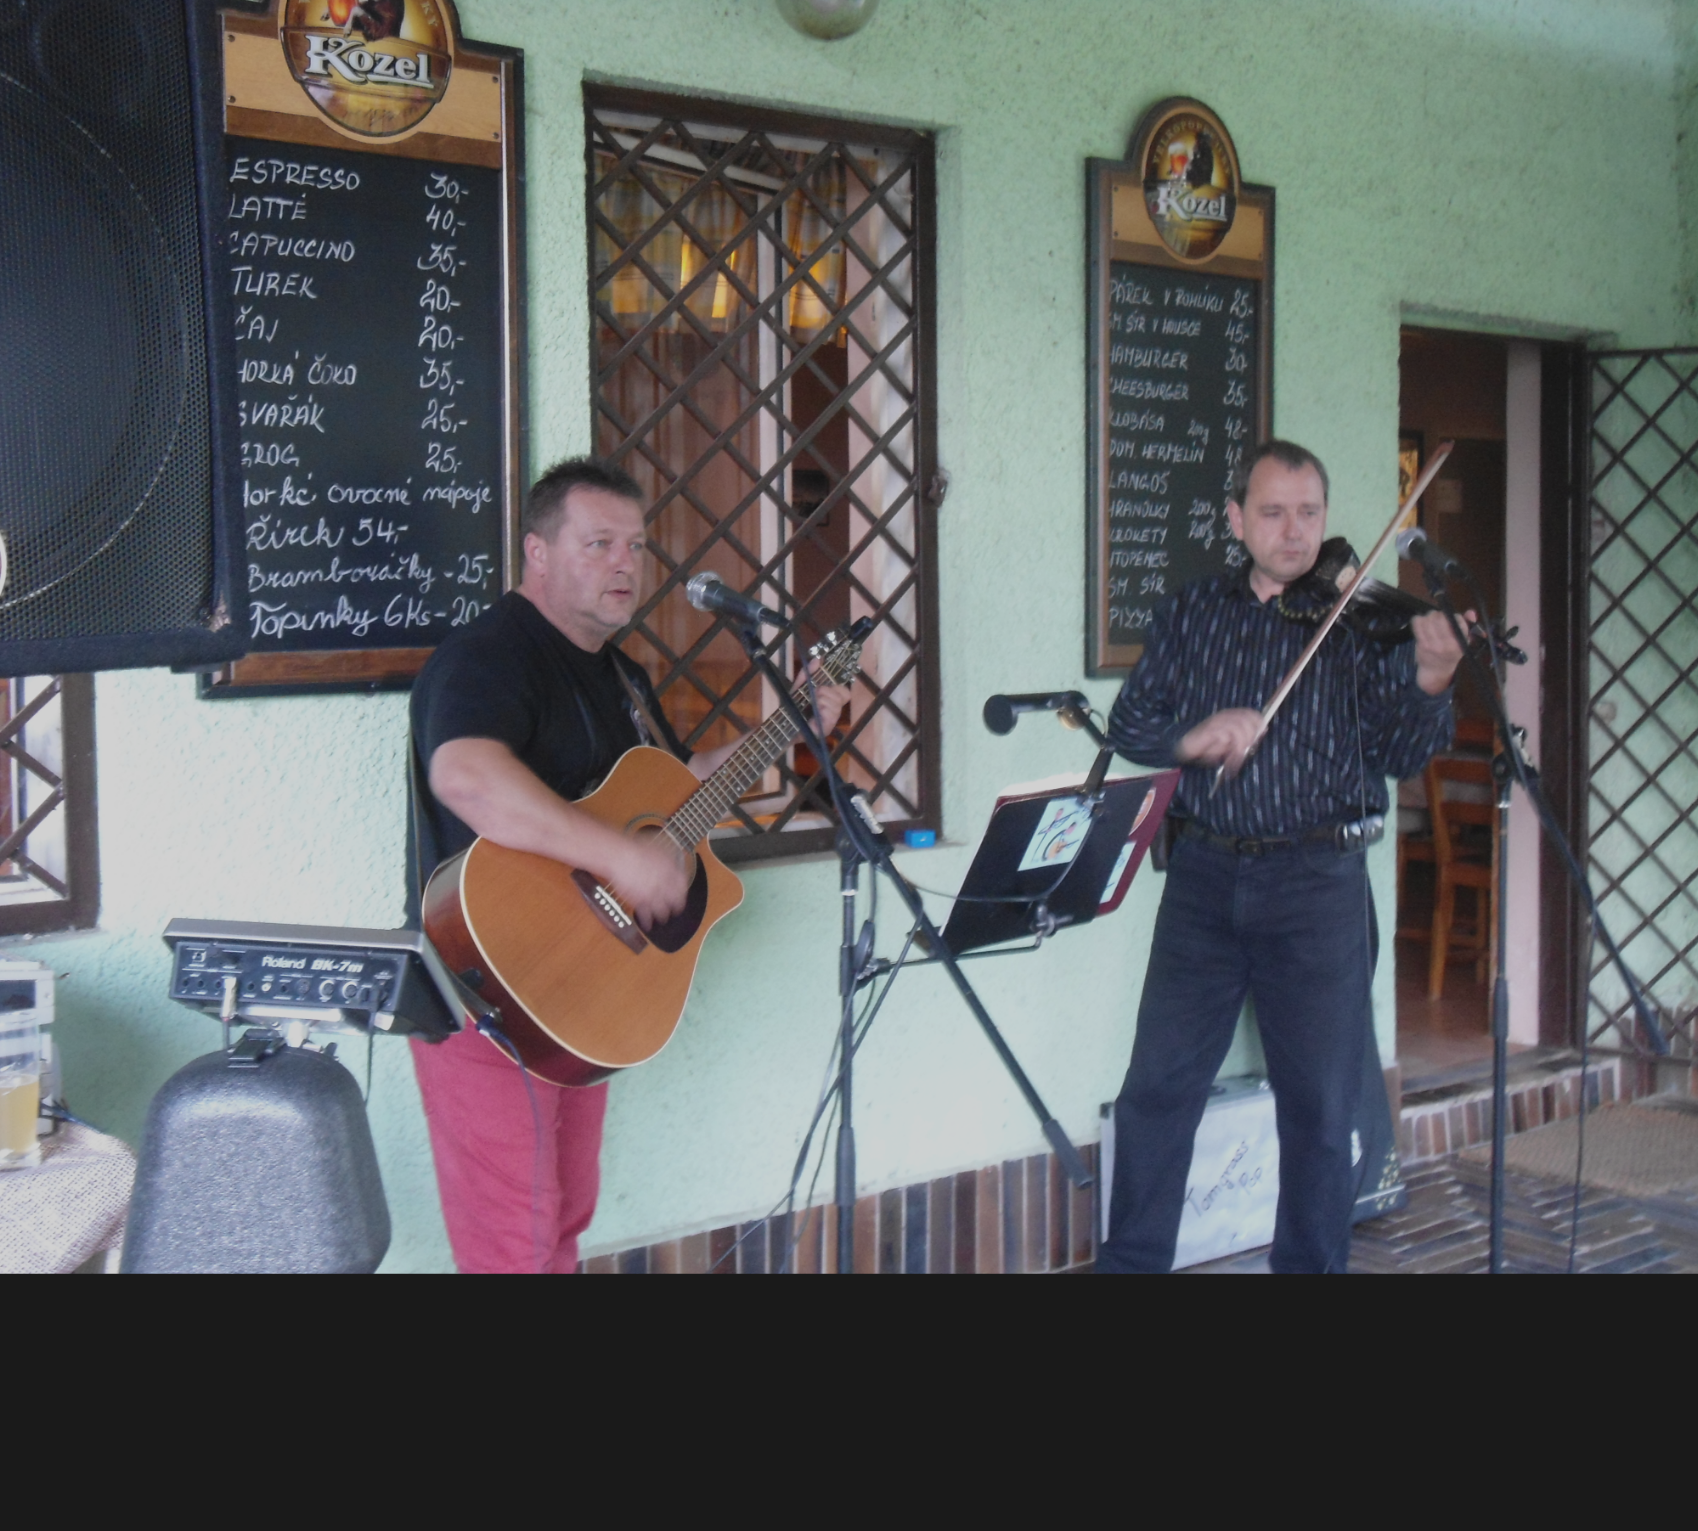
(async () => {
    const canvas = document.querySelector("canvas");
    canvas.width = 1698;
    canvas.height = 1531;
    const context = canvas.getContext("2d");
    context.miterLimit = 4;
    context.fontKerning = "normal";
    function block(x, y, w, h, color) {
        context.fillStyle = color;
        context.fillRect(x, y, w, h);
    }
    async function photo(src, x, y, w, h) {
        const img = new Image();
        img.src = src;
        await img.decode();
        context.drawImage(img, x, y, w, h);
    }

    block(0, 0, 1698, 1531, "rgb(26, 26, 26)");
    await photo("media/1.png", 0, 0, 1698, 1274);
})();
